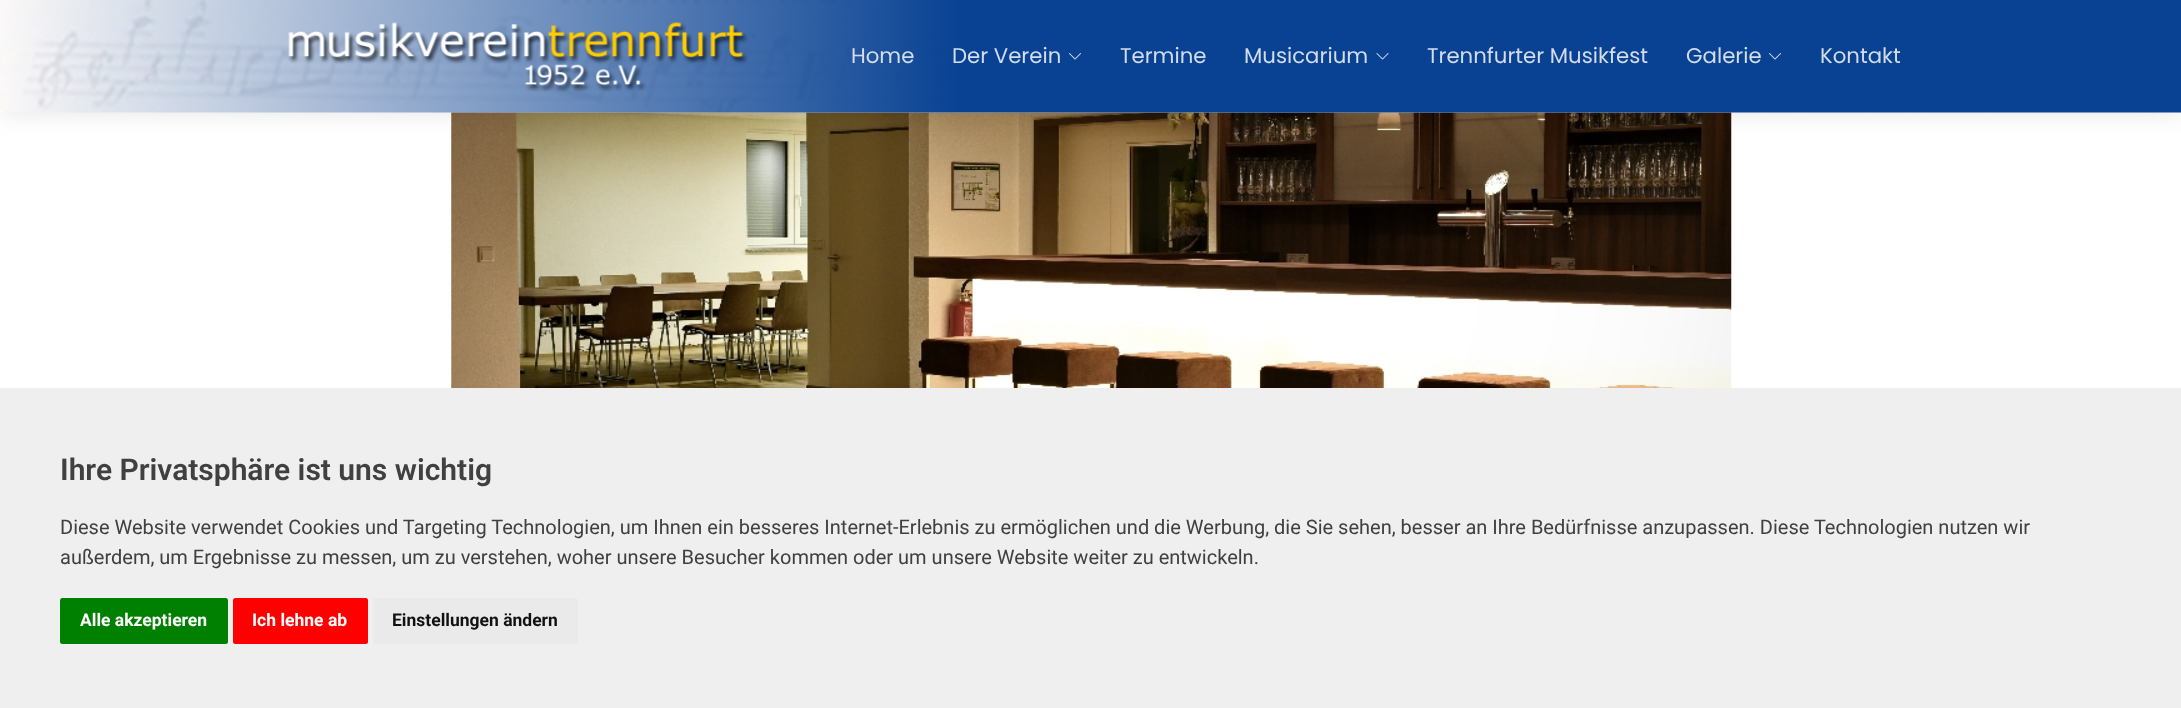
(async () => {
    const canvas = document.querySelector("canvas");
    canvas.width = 2181;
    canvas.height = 708;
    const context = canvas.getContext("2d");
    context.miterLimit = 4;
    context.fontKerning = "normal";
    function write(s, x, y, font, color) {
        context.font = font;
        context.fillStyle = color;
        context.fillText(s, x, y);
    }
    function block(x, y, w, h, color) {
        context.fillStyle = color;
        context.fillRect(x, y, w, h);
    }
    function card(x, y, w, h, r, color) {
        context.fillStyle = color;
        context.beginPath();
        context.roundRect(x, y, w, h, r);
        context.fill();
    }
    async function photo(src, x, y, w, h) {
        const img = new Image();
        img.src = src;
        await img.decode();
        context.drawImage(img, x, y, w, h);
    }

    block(0, 0, 2181, 708, "rgb(255, 255, 255)");
    await photo("media/5.png", 451, 112, 1281, 276);
    context.fillStyle = "rgba(0, 0, 0, 0.1)";
    context.filter = "blur(12.5px)";
    context.beginPath();
    context.rect(0, 0, 2181, 113);
    context.fill();
    context.filter = "none";
    await photo("media/1.png", 0, 0, 2181, 113);
    await photo("media/2.png", 288, 22, 460, 70);
    write("Home", 851, 63, "21.25px Poppins", "rgb(210, 220, 235)");
    write("Der Verein", 952, 63, "21.25px Poppins", "rgb(210, 220, 235)");
    await photo("media/3.png", 1069, 53, 12, 7);
    write("Termine", 1120, 63, "21.25px Poppins", "rgb(210, 220, 235)");
    write("Musicarium", 1244, 63, "21.25px Poppins", "rgb(210, 220, 235)");
    await photo("media/4.png", 1376, 53, 13, 7);
    write("Trennfurter Musikfest", 1427, 63, "21.25px Poppins", "rgb(210, 220, 235)");
    write("Galerie", 1686, 63, "21.25px Poppins", "rgb(210, 220, 235)");
    await photo("media/3.png", 1769, 53, 12, 7);
    write("Kontakt", 1820, 63, "21.25px Poppins", "rgb(210, 220, 235)");
    block(0, 388, 2181, 320, "rgb(239, 239, 239)");
    write("Ihre Privatsphäre ist uns wichtig", 60, 480, "600 30px Roboto", "rgb(64, 64, 64)");
    write("Diese Website verwendet Cookies und Targeting Technologien, um Ihnen ein besseres Internet-Erlebnis zu ermöglichen und die Werbung, die Sie sehen, besser an Ihre Bedürfnisse anzupassen. Diese Technologien nutzen wir", 60, 534, "20px Roboto", "rgb(64, 64, 64)");
    write("außerdem, um Ergebnisse zu messen, um zu verstehen, woher unsere Besucher kommen oder um unsere Website weiter zu entwickeln.", 60, 564, "20px Roboto", "rgb(64, 64, 64)");
    card(60, 598, 168, 46, 2.5, "rgb(0, 128, 0)");
    write("Alle akzeptieren", 80, 626, "bold 17.5px Roboto", "rgb(255, 255, 255)");
    card(233, 598, 135, 46, 2.5, "rgb(255, 0, 0)");
    write("Ich lehne ab", 252, 626, "bold 17.5px Roboto", "rgb(255, 255, 255)");
    card(373, 598, 205, 46, 2.5, "rgb(234, 234, 234)");
    write("Einstellungen ändern", 392, 626, "bold 17.5px Roboto", "rgb(17, 17, 17)");
})();
